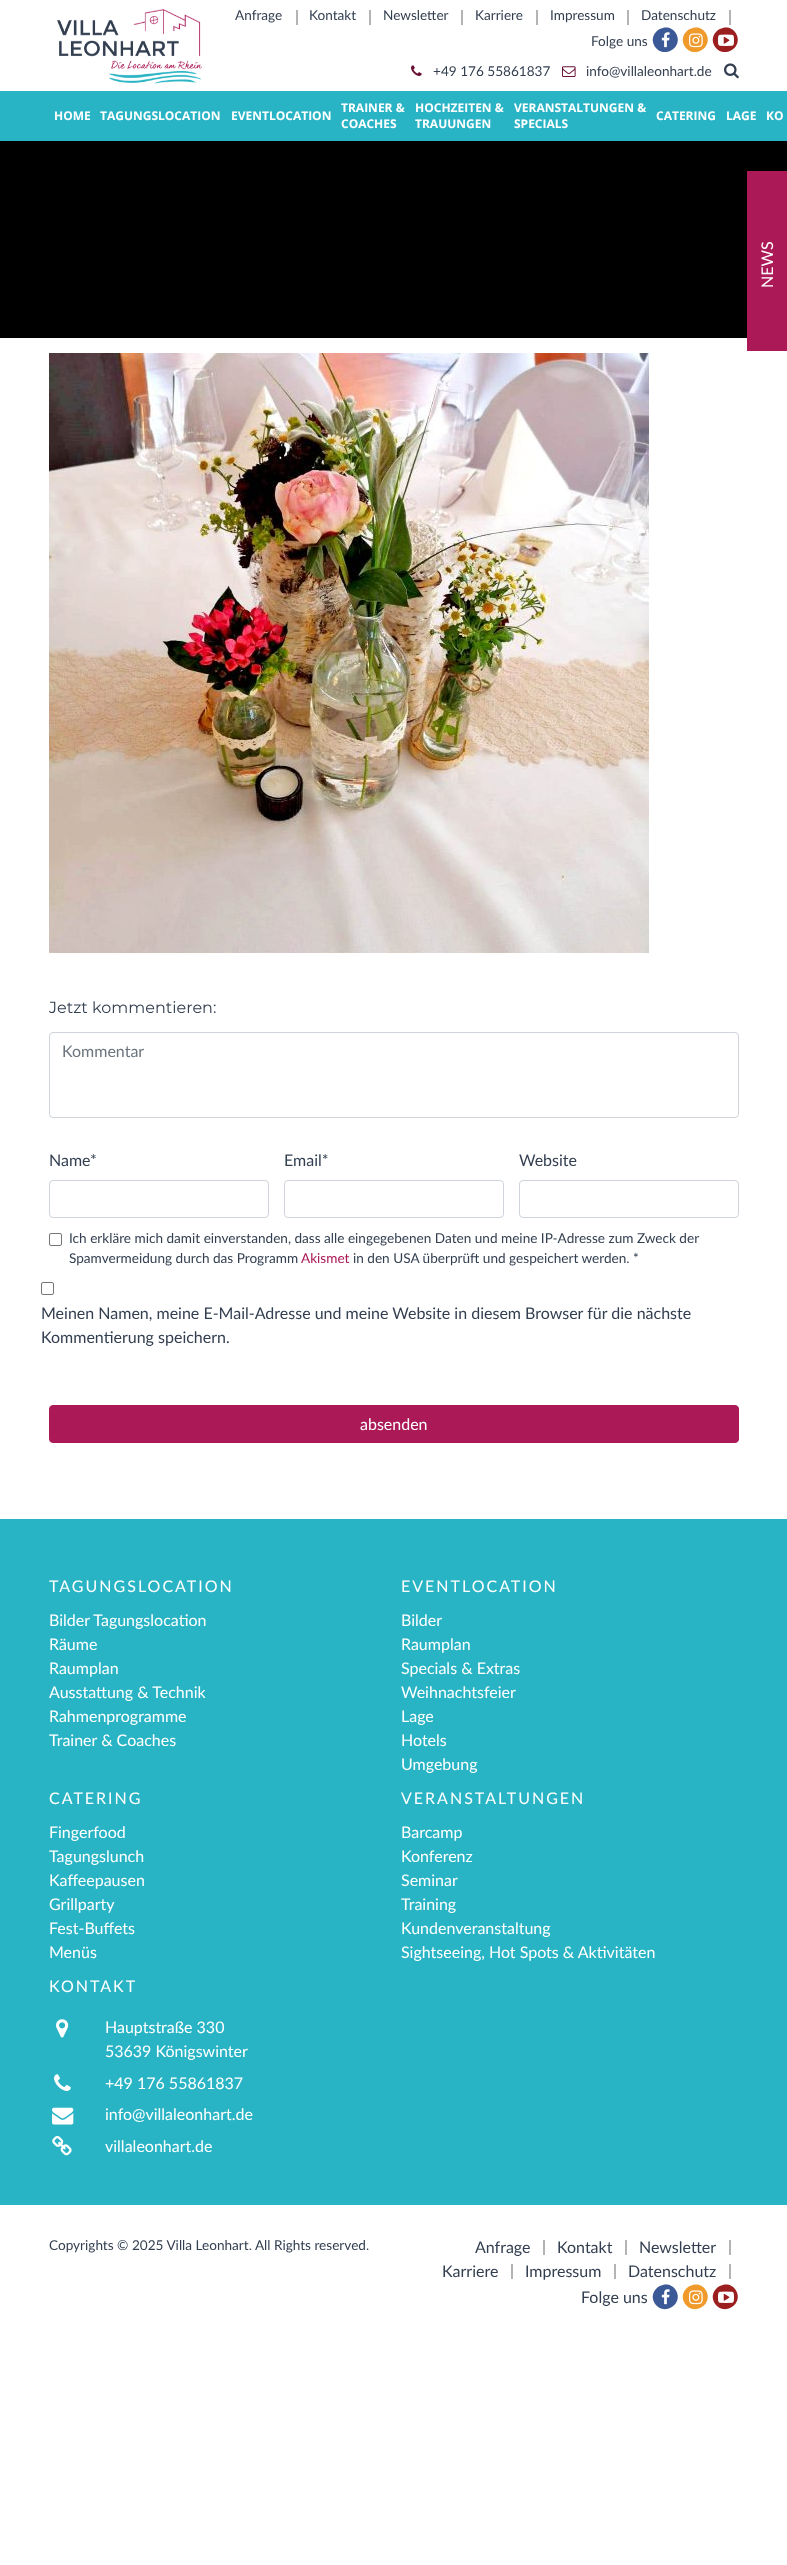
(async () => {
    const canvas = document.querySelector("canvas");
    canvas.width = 787;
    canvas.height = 2565;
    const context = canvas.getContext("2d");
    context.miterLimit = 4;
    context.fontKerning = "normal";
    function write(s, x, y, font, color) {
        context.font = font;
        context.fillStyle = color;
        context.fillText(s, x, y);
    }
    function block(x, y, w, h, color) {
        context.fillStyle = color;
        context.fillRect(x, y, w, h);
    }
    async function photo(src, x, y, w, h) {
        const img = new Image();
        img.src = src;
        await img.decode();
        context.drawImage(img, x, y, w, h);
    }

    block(0, 0, 787, 2565, "rgb(255, 255, 255)");
    await photo("media/1.png", 57, 9, 145, 75);
    write("Anfrage", 235, 20, "13.6px Lato", "rgb(51, 63, 80)");
    block(296, 10, 2, 15, "rgb(180, 180, 180)");
    write("Kontakt", 309, 20, "13.6px Lato", "rgb(51, 63, 80)");
    block(369, 10, 2, 15, "rgb(180, 180, 180)");
    write("Newsletter", 383, 20, "13.6px Lato", "rgb(51, 63, 80)");
    block(461, 10, 2, 15, "rgb(180, 180, 180)");
    write("Karriere", 475, 20, "13.6px Lato", "rgb(51, 63, 80)");
    block(536, 10, 2, 15, "rgb(180, 180, 180)");
    write("Impressum", 550, 20, "13.6px Lato", "rgb(51, 63, 80)");
    block(627, 10, 2, 15, "rgb(180, 180, 180)");
    write("Datenschutz", 641, 20, "13.6px Lato", "rgb(51, 63, 80)");
    block(729, 10, 2, 15, "rgb(180, 180, 180)");
    write("Folge uns", 591, 46, "13.6px Lato", "rgb(51, 63, 80)");
    context.fillStyle = "rgb(59, 89, 151)";
    context.beginPath();
    context.moveTo(676, 33.5);
    context.bezierCurveTo(684, 47.5, 663, 60, 654.5, 46);
    context.bezierCurveTo(646.5, 32, 668, 19.5, 676, 33.5);
    context.closePath();
    context.fill();
    await photo("media/2.png", 661, 32, 9, 16);
    context.fillStyle = "rgb(239, 154, 42)";
    context.beginPath();
    context.moveTo(706, 33.5);
    context.bezierCurveTo(714, 47.5, 693, 60, 684.5, 46);
    context.bezierCurveTo(676.5, 32, 698, 19.5, 706, 33.5);
    context.closePath();
    context.fill();
    await photo("media/3.png", 689, 33, 14, 15);
    context.fillStyle = "rgb(156, 31, 31)";
    context.beginPath();
    context.moveTo(736, 33.5);
    context.bezierCurveTo(744, 47.5, 723, 60, 714.5, 46);
    context.bezierCurveTo(706.5, 32, 728, 19.5, 736, 33.5);
    context.closePath();
    context.fill();
    await photo("media/4.png", 718, 34, 16, 12);
    await photo("media/5.png", 411, 65, 11, 11);
    write("+49 176 55861837", 433, 76, "13.6px Lato", "rgb(51, 63, 80)");
    await photo("media/6.png", 562, 66, 14, 11);
    write("info@villaleonhart.de", 586, 76, "13.6px Lato", "rgb(51, 63, 80)");
    await photo("media/7.png", 724, 63, 15, 16);
    block(0, 91, 787, 50, "rgb(41, 180, 197)");
    write("HOME", 54, 120, "bold 12px Open Sans", "rgb(255, 255, 255)");
    write("TAGUNGSLOCATION", 100, 120, "bold 12px Open Sans", "rgb(255, 255, 255)");
    write("EVENTLOCATION", 231, 120, "bold 12px Open Sans", "rgb(255, 255, 255)");
    write("TRAINER &", 341, 112, "bold 12px Open Sans", "rgb(255, 255, 255)");
    write("COACHES", 341, 128, "bold 12px Open Sans", "rgb(255, 255, 255)");
    write("HOCHZEITEN &", 415, 112, "bold 12px Open Sans", "rgb(255, 255, 255)");
    write("TRAUUNGEN", 415, 128, "bold 12px Open Sans", "rgb(255, 255, 255)");
    write("VERANSTALTUNGEN &", 514, 112, "bold 12px Open Sans", "rgb(255, 255, 255)");
    write("SPECIALS", 514, 128, "bold 12px Open Sans", "rgb(255, 255, 255)");
    write("CATERING", 656, 120, "bold 12px Open Sans", "rgb(255, 255, 255)");
    write("LAGE", 726, 120, "bold 12px Open Sans", "rgb(255, 255, 255)");
    write("KO", 766, 120, "bold 12px Open Sans", "rgb(255, 255, 255)");
    block(0, 141, 787, 197, "rgb(0, 0, 0)");
    block(747, 171, 40, 180, "rgb(171, 25, 87)");
    context.font = "16px Lato";
    context.fillStyle = "rgb(255, 255, 255)";
    context.save();
    context.translate(773, 288);
    context.rotate(-90 * Math.PI / 180);
    context.fillText("NEWS", 0, 0);
    context.restore();
    await photo("media/8.png", 49, 353, 600, 600);
    write("Jetzt kommentieren:", 49, 1013, "16px Montserrat", "rgb(51, 63, 80)");
    context.beginPath();
    context.roundRect(49.5, 1032.5, 689, 85, 3.5);
    context.strokeStyle = "rgb(206, 212, 218)";
    context.stroke();
    write("Kommentar", 62, 1057, "16px Lato", "rgb(108, 117, 125)");
    write("Name", 49, 1166, "16px Lato", "rgb(51, 63, 80)");
    write("*", 90, 1166, "16px Lato", "rgb(51, 63, 80)");
    context.beginPath();
    context.roundRect(49.5, 1180.5, 219, 37, 3.5);
    context.stroke();
    write("Email*", 284, 1166, "16px Lato", "rgb(51, 63, 80)");
    context.beginPath();
    context.roundRect(284.5, 1180.5, 219, 37, 3.5);
    context.stroke();
    write("Website", 519, 1166, "16px Lato", "rgb(51, 63, 80)");
    context.beginPath();
    context.roundRect(519.5, 1180.5, 219, 37, 3.5);
    context.stroke();
    context.beginPath();
    context.roundRect(49.5, 1233.5, 12, 12, 1.5);
    context.strokeStyle = "rgb(118, 118, 118)";
    context.stroke();
    write("Ich erkläre mich damit einverstanden, dass alle eingegebenen Daten und meine IP-Adresse zum Zweck der", 69, 1243, "13.6px Lato", "rgb(51, 63, 80)");
    write("Spamvermeidung durch das Programm", 69, 1263, "13.6px Lato", "rgb(51, 63, 80)");
    write("Akismet", 301, 1263, "13.6px Lato", "rgb(171, 25, 87)");
    write("in den USA überprüft und gespeichert werden. *", 353, 1263, "13.6px Lato", "rgb(51, 63, 80)");
    context.beginPath();
    context.roundRect(41.5, 1282.5, 12, 12, 1.5);
    context.stroke();
    write("Meinen Namen, meine E-Mail-Adresse und meine Website in diesem Browser für die nächste", 41, 1319, "16px Lato", "rgb(51, 63, 80)");
    write("Kommentierung speichern.", 41, 1343, "16px Lato", "rgb(51, 63, 80)");
    context.fillStyle = "rgb(171, 25, 87)";
    context.beginPath();
    context.roundRect(49.5, 1405.5, 689, 37, 3.5);
    context.fill();
    context.strokeStyle = "rgb(171, 25, 87)";
    context.stroke();
    write("absenden", 360, 1430, "16px Lato", "rgb(255, 255, 255)");
    block(0, 1519, 787, 686, "rgb(41, 180, 197)");
    context.letterSpacing = "2px";
    write("TAGUNGSLOCATION", 49, 1592, "16px Lato", "rgb(255, 255, 255)");
    context.letterSpacing = "0px";
    write("Bilder Tagungslocation", 49, 1626, "16px Lato", "rgb(255, 255, 255)");
    write("Räume", 49, 1650, "16px Lato", "rgb(255, 255, 255)");
    write("Raumplan", 49, 1674, "16px Lato", "rgb(255, 255, 255)");
    write("Ausstattung & Technik", 49, 1698, "16px Lato", "rgb(255, 255, 255)");
    write("Rahmenprogramme", 49, 1722, "16px Lato", "rgb(255, 255, 255)");
    write("Trainer & Coaches", 49, 1746, "16px Lato", "rgb(255, 255, 255)");
    context.letterSpacing = "2px";
    write("EVENTLOCATION", 401, 1592, "16px Lato", "rgb(255, 255, 255)");
    context.letterSpacing = "0px";
    write("Bilder", 401, 1626, "16px Lato", "rgb(255, 255, 255)");
    write("Raumplan", 401, 1650, "16px Lato", "rgb(255, 255, 255)");
    write("Specials & Extras", 401, 1674, "16px Lato", "rgb(255, 255, 255)");
    write("Weihnachtsfeier", 401, 1698, "16px Lato", "rgb(255, 255, 255)");
    write("Lage", 401, 1722, "16px Lato", "rgb(255, 255, 255)");
    write("Hotels", 401, 1746, "16px Lato", "rgb(255, 255, 255)");
    write("Umgebung", 401, 1770, "16px Lato", "rgb(255, 255, 255)");
    context.letterSpacing = "2px";
    write("CATERING", 49, 1804, "16px Lato", "rgb(255, 255, 255)");
    context.letterSpacing = "0px";
    write("Fingerfood", 49, 1838, "16px Lato", "rgb(255, 255, 255)");
    write("Tagungslunch", 49, 1862, "16px Lato", "rgb(255, 255, 255)");
    write("Kaffeepausen", 49, 1886, "16px Lato", "rgb(255, 255, 255)");
    write("Grillparty", 49, 1910, "16px Lato", "rgb(255, 255, 255)");
    write("Fest-Buffets", 49, 1934, "16px Lato", "rgb(255, 255, 255)");
    write("Menüs", 49, 1958, "16px Lato", "rgb(255, 255, 255)");
    context.letterSpacing = "2px";
    write("VERANSTALTUNGEN", 401, 1804, "16px Lato", "rgb(255, 255, 255)");
    context.letterSpacing = "0px";
    write("Barcamp", 401, 1838, "16px Lato", "rgb(255, 255, 255)");
    write("Konferenz", 401, 1862, "16px Lato", "rgb(255, 255, 255)");
    write("Seminar", 401, 1886, "16px Lato", "rgb(255, 255, 255)");
    write("Training", 401, 1910, "16px Lato", "rgb(255, 255, 255)");
    write("Kundenveranstaltung", 401, 1934, "16px Lato", "rgb(255, 255, 255)");
    write("Sightseeing, Hot Spots & Aktivitäten", 401, 1958, "16px Lato", "rgb(255, 255, 255)");
    context.letterSpacing = "2px";
    write("KONTAKT", 49, 1992, "16px Lato", "rgb(255, 255, 255)");
    await photo("media/9.png", 56, 2019, 13, 19);
    context.letterSpacing = "0px";
    write("Hauptstraße 330", 105, 2033, "16px Lato", "rgb(255, 255, 255)");
    write("53639 Königswinter", 105, 2057, "16px Lato", "rgb(255, 255, 255)");
    await photo("media/10.png", 54, 2074, 17, 17);
    write("+49 176 55861837", 105, 2089, "16px Lato", "rgb(255, 255, 255)");
    await photo("media/11.png", 52, 2107, 22, 18);
    write("info@villaleonhart.de", 105, 2120, "16px Lato", "rgb(255, 255, 255)");
    await photo("media/12.png", 52, 2135, 20, 21);
    write("villaleonhart.de", 105, 2152, "16px Lato", "rgb(255, 255, 255)");
    write("Copyrights © 2025 Villa Leonhart. All Rights reserved.", 49, 2250, "13.6px Lato", "rgb(51, 63, 80)");
    write("Anfrage", 475, 2253, "16px Lato", "rgb(51, 63, 80)");
    block(543, 2240, 2, 15, "rgb(180, 180, 180)");
    write("Kontakt", 557, 2253, "16px Lato", "rgb(51, 63, 80)");
    block(625, 2240, 2, 15, "rgb(180, 180, 180)");
    write("Newsletter", 639, 2253, "16px Lato", "rgb(51, 63, 80)");
    block(729, 2240, 2, 15, "rgb(180, 180, 180)");
    write("Karriere", 442, 2277, "16px Lato", "rgb(51, 63, 80)");
    block(511, 2264, 2, 15, "rgb(180, 180, 180)");
    write("Impressum", 525, 2277, "16px Lato", "rgb(51, 63, 80)");
    block(614, 2264, 2, 15, "rgb(180, 180, 180)");
    write("Datenschutz", 628, 2277, "16px Lato", "rgb(51, 63, 80)");
    block(729, 2264, 2, 15, "rgb(180, 180, 180)");
    write("Folge uns", 581, 2303, "16px Lato", "rgb(51, 63, 80)");
    context.fillStyle = "rgb(59, 89, 151)";
    context.beginPath();
    context.moveTo(676, 2290.5);
    context.bezierCurveTo(684, 2304.5, 663, 2317, 654.5, 2303);
    context.bezierCurveTo(646.5, 2289, 668, 2276.5, 676, 2290.5);
    context.closePath();
    context.fill();
    await photo("media/2.png", 661, 2289, 9, 16);
    context.fillStyle = "rgb(239, 154, 42)";
    context.beginPath();
    context.moveTo(706, 2290.5);
    context.bezierCurveTo(714, 2304.5, 693, 2317, 684.5, 2303);
    context.bezierCurveTo(676.5, 2289, 698, 2276.5, 706, 2290.5);
    context.closePath();
    context.fill();
    await photo("media/3.png", 689, 2290, 14, 15);
    context.fillStyle = "rgb(156, 31, 31)";
    context.beginPath();
    context.moveTo(736, 2290.5);
    context.bezierCurveTo(744, 2304.5, 723, 2317, 714.5, 2303);
    context.bezierCurveTo(706.5, 2289, 728, 2276.5, 736, 2290.5);
    context.closePath();
    context.fill();
    await photo("media/4.png", 718, 2291, 16, 12);
})();
